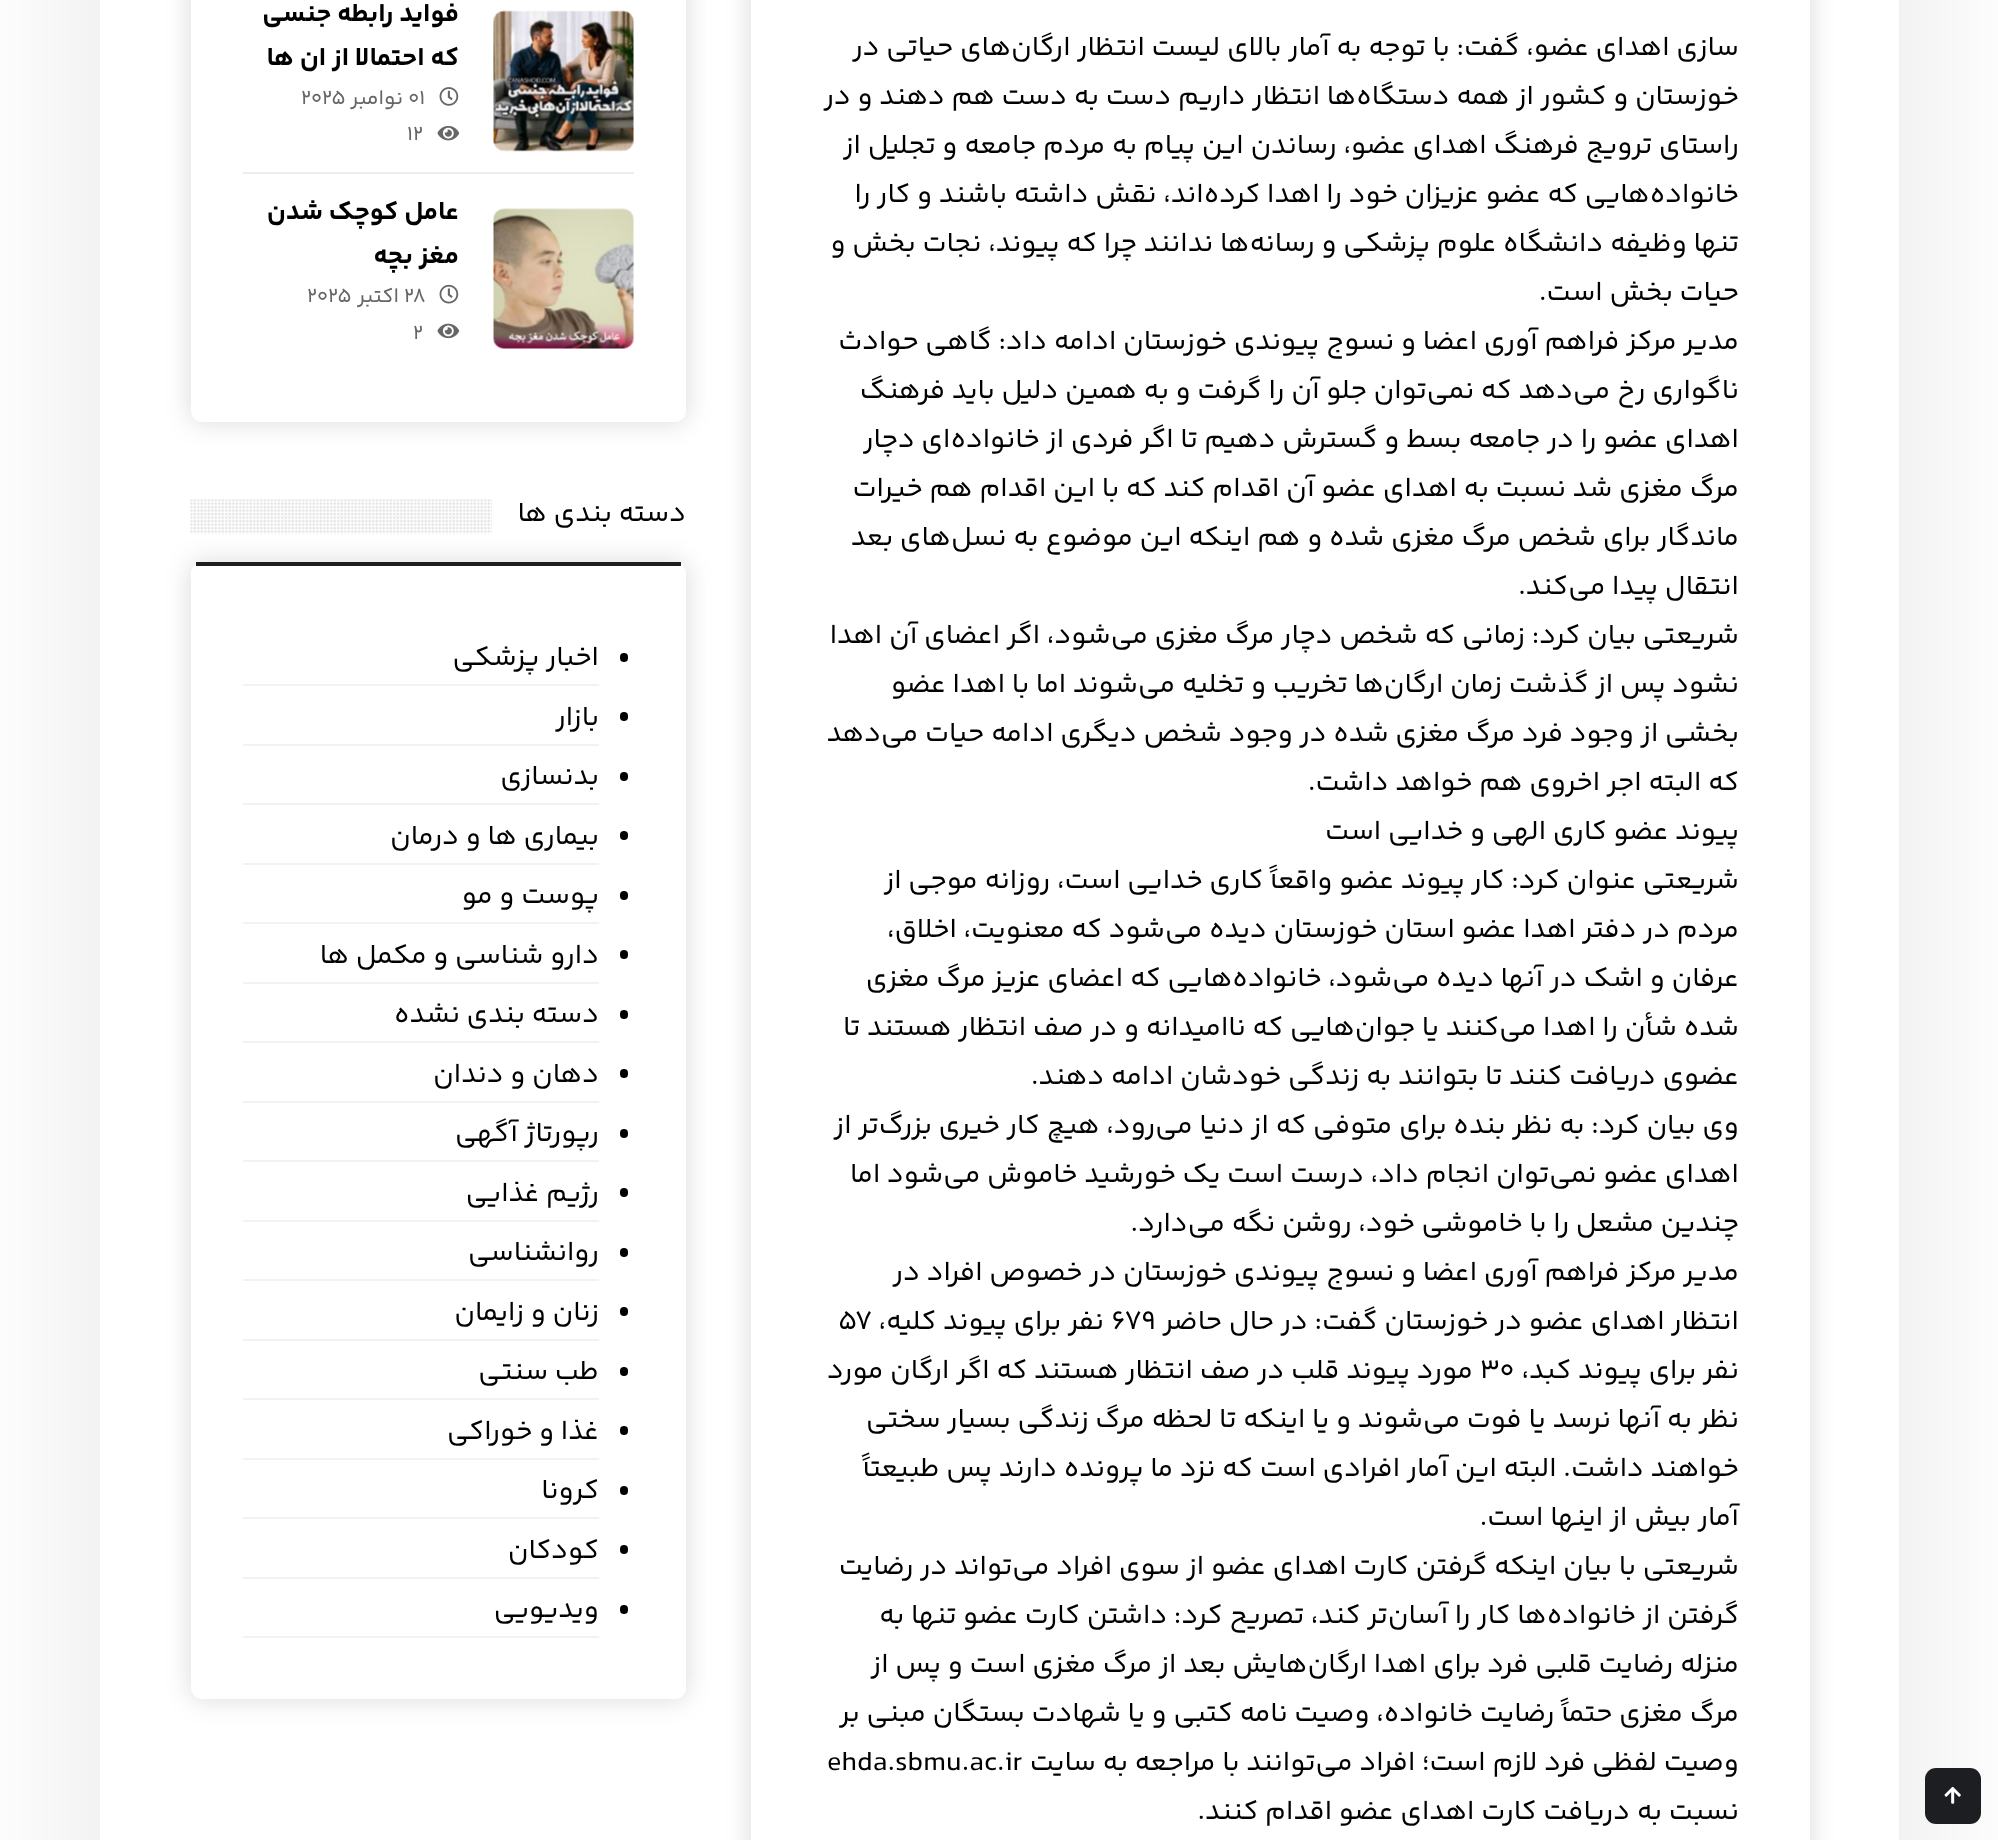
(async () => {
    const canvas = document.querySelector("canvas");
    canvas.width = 1998;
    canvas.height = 1840;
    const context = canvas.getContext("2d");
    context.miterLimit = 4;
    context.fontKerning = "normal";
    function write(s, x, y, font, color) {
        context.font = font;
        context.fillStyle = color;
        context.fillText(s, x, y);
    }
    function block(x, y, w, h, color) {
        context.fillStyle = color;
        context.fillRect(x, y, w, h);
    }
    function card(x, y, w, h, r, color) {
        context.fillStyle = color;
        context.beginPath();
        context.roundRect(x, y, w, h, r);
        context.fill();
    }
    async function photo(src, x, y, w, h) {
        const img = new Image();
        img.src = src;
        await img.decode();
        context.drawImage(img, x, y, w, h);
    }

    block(0, 0, 1998, 1840, "rgb(255, 255, 255)");
    context.fillStyle = "rgba(0, 0, 0, 0.1)";
    context.filter = "blur(87.5px)";
    context.beginPath();
    context.roundRect(100, -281, 1799, 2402, 18);
    context.fill();
    context.filter = "none";
    card(1925, 1768, 56, 56, 11, "rgb(29, 30, 33)");
    await photo("media/1.png", 1944, 1786, 17, 18);
    block(100, 0, 1799, 1840, "rgb(255, 255, 255)");
    context.save();
    context.beginPath();
    context.moveTo(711, 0);
    context.lineTo(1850, 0);
    context.lineTo(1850, 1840);
    context.lineTo(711, 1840);
    context.closePath();
    context.moveTo(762, -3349);
    context.lineTo(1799, -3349);
    context.bezierCurveTo(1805, -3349, 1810, -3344, 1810, -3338);
    context.lineTo(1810, 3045);
    context.bezierCurveTo(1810, 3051, 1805, 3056, 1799, 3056);
    context.lineTo(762, 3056);
    context.bezierCurveTo(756, 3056, 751, 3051, 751, 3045);
    context.lineTo(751, -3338);
    context.bezierCurveTo(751, -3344, 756, -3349, 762, -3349);
    context.closePath();
    context.clip("evenodd");
    context.fillStyle = "rgba(0, 0, 0, 0.15)";
    context.filter = "blur(13px)";
    context.beginPath();
    context.roundRect(751, -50, 1059, 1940, 11);
    context.fill();
    context.filter = "none";
    context.restore();
    context.direction = "rtl";
    write("سازی اهدای عضو، گفت: با توجه به آمار بالای لیست انتظار ارگان‌های حیاتی در", 1739, 55, "28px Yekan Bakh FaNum", "rgb(0, 0, 0)");
    write("خوزستان و کشور از همه دستگاه‌ها انتظار داریم دست به دست هم دهند و در", 1739, 104, "28px Yekan Bakh FaNum", "rgb(0, 0, 0)");
    write("راستای ترویج فرهنگ اهدای عضو، رساندن این پیام به مردم جامعه و تجلیل از", 1739, 153, "28px Yekan Bakh FaNum", "rgb(0, 0, 0)");
    write("خانواده‌هایی که عضو عزیزان خود را اهدا کرده‌اند، نقش داشته باشند و کار را", 1739, 202, "28px Yekan Bakh FaNum", "rgb(0, 0, 0)");
    write("تنها وظیفه دانشگاه علوم پزشکی و رسانه‌ها ندانند چرا که پیوند، نجات بخش و", 1739, 251, "28px Yekan Bakh FaNum", "rgb(0, 0, 0)");
    write("حیات بخش است.", 1739, 300, "28px Yekan Bakh FaNum", "rgb(0, 0, 0)");
    write("مدیر مرکز فراهم آوری اعضا و نسوج پیوندی خوزستان ادامه داد: گاهی حوادث", 1739, 349, "28px Yekan Bakh FaNum", "rgb(0, 0, 0)");
    write("ناگواری رخ می‌دهد که نمی‌توان جلو آن را گرفت و به همین دلیل باید فرهنگ", 1739, 398, "28px Yekan Bakh FaNum", "rgb(0, 0, 0)");
    write("اهدای عضو را در جامعه بسط و گسترش دهیم تا اگر فردی از خانواده‌ای دچار", 1739, 447, "28px Yekan Bakh FaNum", "rgb(0, 0, 0)");
    write("مرگ مغزی شد نسبت به اهدای عضو آن اقدام کند که با این اقدام هم خیرات", 1739, 496, "28px Yekan Bakh FaNum", "rgb(0, 0, 0)");
    write("ماندگار برای شخص مرگ مغزی شده و هم اینکه این موضوع به نسل‌های بعد", 1739, 545, "28px Yekan Bakh FaNum", "rgb(0, 0, 0)");
    write("انتقال پیدا می‌کند.", 1739, 594, "28px Yekan Bakh FaNum", "rgb(0, 0, 0)");
    write("شریعتی بیان کرد: زمانی که شخص دچار مرگ مغزی می‌شود، اگر اعضای آن اهدا", 1739, 643, "28px Yekan Bakh FaNum", "rgb(0, 0, 0)");
    write("نشود پس از گذشت زمان ارگان‌ها تخریب و تخلیه می‌شوند اما با اهدا عضو", 1739, 692, "28px Yekan Bakh FaNum", "rgb(0, 0, 0)");
    write("بخشی از وجود فرد مرگ مغزی شده در وجود شخص دیگری ادامه حیات می‌دهد", 1739, 741, "28px Yekan Bakh FaNum", "rgb(0, 0, 0)");
    write("که البته اجر اخروی هم خواهد داشت.", 1739, 790, "28px Yekan Bakh FaNum", "rgb(0, 0, 0)");
    write("پیوند عضو کاری الهی و خدایی است", 1739, 839, "28px Yekan Bakh FaNum", "rgb(0, 0, 0)");
    write("شریعتی عنوان کرد: کار پیوند عضو واقعاً کاری خدایی است، روزانه موجی از", 1739, 888, "28px Yekan Bakh FaNum", "rgb(0, 0, 0)");
    write("مردم در دفتر اهدا عضو استان خوزستان دیده می‌شود که معنویت، اخلاق،", 1739, 937, "28px Yekan Bakh FaNum", "rgb(0, 0, 0)");
    write("عرفان و اشک در آنها دیده می‌شود، خانواده‌هایی که اعضای عزیز مرگ مغزی", 1739, 986, "28px Yekan Bakh FaNum", "rgb(0, 0, 0)");
    write("شده شأن را اهدا می‌کنند یا جوان‌هایی که ناامیدانه و در صف انتظار هستند تا", 1739, 1035, "28px Yekan Bakh FaNum", "rgb(0, 0, 0)");
    write("عضوی دریافت کنند تا بتوانند به زندگی خودشان ادامه دهند.", 1739, 1084, "28px Yekan Bakh FaNum", "rgb(0, 0, 0)");
    write("وی بیان کرد: به نظر بنده برای متوفی که از دنیا می‌رود، هیچ کار خیری بزرگ‌تر از", 1739, 1133, "28px Yekan Bakh FaNum", "rgb(0, 0, 0)");
    write("اهدای عضو نمی‌توان انجام داد، درست است یک خورشید خاموش می‌شود اما", 1739, 1182, "28px Yekan Bakh FaNum", "rgb(0, 0, 0)");
    write("چندین مشعل را با خاموشی خود، روشن نگه می‌دارد.", 1739, 1231, "28px Yekan Bakh FaNum", "rgb(0, 0, 0)");
    write("مدیر مرکز فراهم آوری اعضا و نسوج پیوندی خوزستان در خصوص افراد در", 1739, 1280, "28px Yekan Bakh FaNum", "rgb(0, 0, 0)");
    write("انتظار اهدای عضو در خوزستان گفت: در حال حاضر", 1739, 1329, "28px Yekan Bakh FaNum", "rgb(0, 0, 0)");
    context.direction = "ltr";
    write("۶۷۹", 1111, 1329, "28px Yekan Bakh FaNum", "rgb(0, 0, 0)");
    context.direction = "rtl";
    write("نفر برای پیوند کلیه،", 1104, 1329, "28px Yekan Bakh FaNum", "rgb(0, 0, 0)");
    context.direction = "ltr";
    write("۵۷", 838, 1329, "28px Yekan Bakh FaNum", "rgb(0, 0, 0)");
    context.direction = "rtl";
    write("نفر برای پیوند کبد،", 1739, 1378, "28px Yekan Bakh FaNum", "rgb(0, 0, 0)");
    context.direction = "ltr";
    write("۳۰", 1480, 1378, "28px Yekan Bakh FaNum", "rgb(0, 0, 0)");
    context.direction = "rtl";
    write("مورد پیوند قلب در صف انتظار هستند که اگر ارگان مورد", 1473, 1378, "28px Yekan Bakh FaNum", "rgb(0, 0, 0)");
    write("نظر به آنها نرسد یا فوت می‌شوند و یا اینکه تا لحظه مرگ زندگی بسیار سختی", 1739, 1427, "28px Yekan Bakh FaNum", "rgb(0, 0, 0)");
    write("خواهند داشت. البته این آمار افرادی است که نزد ما پرونده دارند پس طبیعتاً", 1739, 1476, "28px Yekan Bakh FaNum", "rgb(0, 0, 0)");
    write("آمار بیش از اینها است.", 1739, 1525, "28px Yekan Bakh FaNum", "rgb(0, 0, 0)");
    write("شریعتی با بیان اینکه گرفتن کارت اهدای عضو از سوی افراد می‌تواند در رضایت", 1739, 1574, "28px Yekan Bakh FaNum", "rgb(0, 0, 0)");
    write("گرفتن از خانواده‌ها کار را آسان‌تر کند، تصریح کرد: داشتن کارت عضو تنها به", 1739, 1623, "28px Yekan Bakh FaNum", "rgb(0, 0, 0)");
    write("منزله رضایت قلبی فرد برای اهدا ارگان‌هایش بعد از مرگ مغزی است و پس از", 1739, 1672, "28px Yekan Bakh FaNum", "rgb(0, 0, 0)");
    write("مرگ مغزی حتماً رضایت خانواده، وصیت نامه کتبی و یا شهادت بستگان مبنی بر", 1739, 1721, "28px Yekan Bakh FaNum", "rgb(0, 0, 0)");
    write("وصیت لفظی فرد لازم است؛ افراد می‌توانند با مراجعه به سایت", 1739, 1770, "28px Yekan Bakh FaNum", "rgb(0, 0, 0)");
    context.direction = "ltr";
    write("ehda.sbmu.ac.ir", 827, 1770, "28px Yekan Bakh FaNum", "rgb(0, 0, 0)");
    context.direction = "rtl";
    write("نسبت به دریافت کارت اهدای عضو اقدام کنند.", 1739, 1819, "28px Yekan Bakh FaNum", "rgb(0, 0, 0)");
    context.save();
    context.beginPath();
    context.moveTo(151, 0);
    context.lineTo(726, 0);
    context.lineTo(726, 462);
    context.lineTo(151, 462);
    context.closePath();
    context.moveTo(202, -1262);
    context.lineTo(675, -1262);
    context.bezierCurveTo(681, -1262, 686, -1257, 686, -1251);
    context.lineTo(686, 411);
    context.bezierCurveTo(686, 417, 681, 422, 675, 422);
    context.lineTo(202, 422);
    context.bezierCurveTo(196, 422, 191, 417, 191, 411);
    context.lineTo(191, -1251);
    context.bezierCurveTo(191, -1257, 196, -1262, 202, -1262);
    context.closePath();
    context.clip("evenodd");
    context.fillStyle = "rgba(0, 0, 0, 0.15)";
    context.filter = "blur(13px)";
    context.beginPath();
    context.roundRect(191, -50, 495, 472, 11);
    context.fill();
    context.filter = "none";
    context.restore();
    block(243, 172, 391, 2, "rgb(237, 237, 237)");
    await photo("media/2.png", 493, 10, 141, 142);
    write("فواید رابطه جنسی", 459, 21, "bold 26.25px Yekan Bakh FaNum", "rgb(0, 0, 0)");
    write("که احتمالا از ان ها", 459, 65, "bold 26.25px Yekan Bakh FaNum", "rgb(0, 0, 0)");
    await photo("media/3.png", 439, 87, 20, 19);
    context.direction = "ltr";
    write("۰۱", 408, 104, "21px Yekan Bakh FaNum", "rgb(102, 102, 102)");
    context.direction = "rtl";
    write("نوامبر", 403, 104, "21px Yekan Bakh FaNum", "rgb(102, 102, 102)");
    context.direction = "ltr";
    write("۲۰۲۵", 301, 104, "21px Yekan Bakh FaNum", "rgb(102, 102, 102)");
    await photo("media/4.png", 437, 126, 23, 15);
    write("۱۲", 407, 140, "21px Yekan Bakh FaNum", "rgb(102, 102, 102)");
    await photo("media/5.png", 493, 208, 141, 141);
    context.direction = "rtl";
    write("عامل کوچک شدن", 459, 219, "bold 26.25px Yekan Bakh FaNum", "rgb(0, 0, 0)");
    write("مغز بچه", 459, 263, "bold 26.25px Yekan Bakh FaNum", "rgb(0, 0, 0)");
    await photo("media/6.png", 439, 284, 20, 20);
    context.direction = "ltr";
    write("۲۸", 404, 302, "21px Yekan Bakh FaNum", "rgb(102, 102, 102)");
    context.direction = "rtl";
    write("اکتبر", 399, 302, "21px Yekan Bakh FaNum", "rgb(102, 102, 102)");
    context.direction = "ltr";
    write("۲۰۲۵", 307, 302, "21px Yekan Bakh FaNum", "rgb(102, 102, 102)");
    await photo("media/7.png", 437, 323, 23, 16);
    write("۲", 413, 339, "21px Yekan Bakh FaNum", "rgb(102, 102, 102)");
    context.save();
    context.beginPath();
    context.moveTo(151, 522);
    context.lineTo(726, 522);
    context.lineTo(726, 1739);
    context.lineTo(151, 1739);
    context.closePath();
    context.moveTo(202, 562);
    context.lineTo(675, 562);
    context.bezierCurveTo(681, 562, 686, 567, 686, 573);
    context.lineTo(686, 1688);
    context.bezierCurveTo(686, 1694, 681, 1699, 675, 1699);
    context.lineTo(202, 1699);
    context.bezierCurveTo(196, 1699, 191, 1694, 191, 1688);
    context.lineTo(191, 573);
    context.bezierCurveTo(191, 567, 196, 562, 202, 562);
    context.closePath();
    context.clip("evenodd");
    context.fillStyle = "rgba(0, 0, 0, 0.15)";
    context.filter = "blur(13px)";
    context.beginPath();
    context.roundRect(191, 562, 495, 1137, 11);
    context.fill();
    context.filter = "none";
    context.restore();
    block(196, 562, 485, 4, "rgb(29, 30, 32)");
    context.direction = "rtl";
    write("دسته بندی ها", 686, 521, "28px Yekan Bakh FaNum", "rgb(0, 0, 0)");
    await photo("media/8.png", 190, 499, 302, 36);
    card(620, 653, 8, 9, 4, "rgb(0, 0, 0)");
    block(243, 684, 356, 2, "rgb(242, 242, 242)");
    write("اخبار پزشکی", 599, 665, "28px Yekan Bakh FaNum", "rgb(0, 0, 0)");
    card(620, 712, 8, 9, 4, "rgb(0, 0, 0)");
    block(243, 744, 356, 2, "rgb(242, 242, 242)");
    write("بازار", 599, 725, "28px Yekan Bakh FaNum", "rgb(0, 0, 0)");
    card(620, 772, 8, 9, 4, "rgb(0, 0, 0)");
    block(243, 803, 356, 2, "rgb(242, 242, 242)");
    write("بدنسازی", 599, 784, "28px Yekan Bakh FaNum", "rgb(0, 0, 0)");
    card(620, 831, 8, 9, 4, "rgb(0, 0, 0)");
    block(243, 863, 356, 2, "rgb(242, 242, 242)");
    write("بیماری ها و درمان", 599, 844, "28px Yekan Bakh FaNum", "rgb(0, 0, 0)");
    card(620, 891, 8, 9, 4, "rgb(0, 0, 0)");
    block(243, 922, 356, 2, "rgb(242, 242, 242)");
    write("پوست و مو", 599, 903, "28px Yekan Bakh FaNum", "rgb(0, 0, 0)");
    card(620, 950, 8, 9, 4, "rgb(0, 0, 0)");
    block(243, 982, 356, 2, "rgb(242, 242, 242)");
    write("دارو شناسی و مکمل ها", 599, 963, "28px Yekan Bakh FaNum", "rgb(0, 0, 0)");
    card(620, 1010, 8, 9, 4, "rgb(0, 0, 0)");
    block(243, 1041, 356, 2, "rgb(242, 242, 242)");
    write("دسته بندی نشده", 599, 1022, "28px Yekan Bakh FaNum", "rgb(0, 0, 0)");
    card(620, 1069, 8, 9, 4, "rgb(0, 0, 0)");
    block(243, 1101, 356, 2, "rgb(242, 242, 242)");
    write("دهان و دندان", 599, 1082, "28px Yekan Bakh FaNum", "rgb(0, 0, 0)");
    card(620, 1129, 8, 9, 4, "rgb(0, 0, 0)");
    block(243, 1160, 356, 2, "rgb(242, 242, 242)");
    write("رپورتاژ آگهی", 599, 1141, "28px Yekan Bakh FaNum", "rgb(0, 0, 0)");
    card(620, 1188, 8, 9, 4, "rgb(0, 0, 0)");
    block(243, 1220, 356, 2, "rgb(242, 242, 242)");
    write("رژیم غذایی", 599, 1201, "28px Yekan Bakh FaNum", "rgb(0, 0, 0)");
    card(620, 1248, 8, 9, 4, "rgb(0, 0, 0)");
    block(243, 1279, 356, 2, "rgb(242, 242, 242)");
    write("روانشناسی", 599, 1260, "28px Yekan Bakh FaNum", "rgb(0, 0, 0)");
    card(620, 1307, 8, 9, 4, "rgb(0, 0, 0)");
    block(243, 1339, 356, 2, "rgb(242, 242, 242)");
    write("زنان و زایمان", 599, 1320, "28px Yekan Bakh FaNum", "rgb(0, 0, 0)");
    card(620, 1367, 8, 9, 4, "rgb(0, 0, 0)");
    block(243, 1398, 356, 2, "rgb(242, 242, 242)");
    write("طب سنتی", 599, 1379, "28px Yekan Bakh FaNum", "rgb(0, 0, 0)");
    card(620, 1426, 8, 9, 4, "rgb(0, 0, 0)");
    block(243, 1458, 356, 2, "rgb(242, 242, 242)");
    write("غذا و خوراکی", 599, 1439, "28px Yekan Bakh FaNum", "rgb(0, 0, 0)");
    card(620, 1486, 8, 9, 4, "rgb(0, 0, 0)");
    block(243, 1517, 356, 2, "rgb(242, 242, 242)");
    write("کرونا", 599, 1498, "28px Yekan Bakh FaNum", "rgb(0, 0, 0)");
    card(620, 1545, 8, 9, 4, "rgb(0, 0, 0)");
    block(243, 1577, 356, 2, "rgb(242, 242, 242)");
    write("کودکان", 599, 1558, "28px Yekan Bakh FaNum", "rgb(0, 0, 0)");
    card(620, 1605, 8, 9, 4, "rgb(0, 0, 0)");
    block(243, 1636, 356, 2, "rgb(242, 242, 242)");
    write("ویدیویی", 599, 1617, "28px Yekan Bakh FaNum", "rgb(0, 0, 0)");
})();
